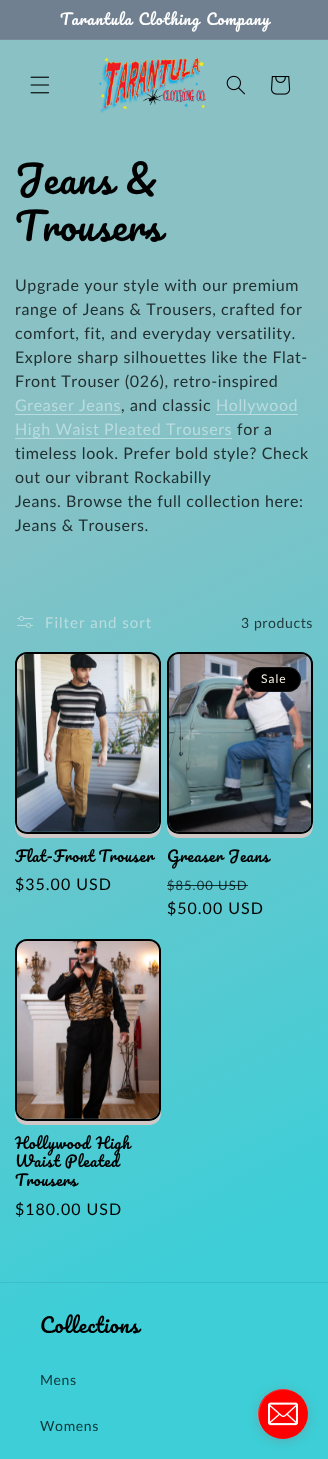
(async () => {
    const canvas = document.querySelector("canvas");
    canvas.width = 328;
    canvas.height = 1459;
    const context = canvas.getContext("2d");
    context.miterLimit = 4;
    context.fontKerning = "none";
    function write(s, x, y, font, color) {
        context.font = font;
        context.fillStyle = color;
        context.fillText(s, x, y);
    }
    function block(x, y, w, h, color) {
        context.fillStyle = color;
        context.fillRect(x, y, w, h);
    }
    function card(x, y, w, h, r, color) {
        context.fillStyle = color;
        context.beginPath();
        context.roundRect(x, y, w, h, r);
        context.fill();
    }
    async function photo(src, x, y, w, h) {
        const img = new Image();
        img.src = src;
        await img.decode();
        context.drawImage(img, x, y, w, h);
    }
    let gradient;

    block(0, 0, 328, 1459, "rgb(255, 255, 255)");
    gradient = context.createLinearGradient(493, 1375, -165, 84);
    gradient.addColorStop(0.16, "rgb(61, 206, 215)");
    gradient.addColorStop(0.71, "rgb(137, 193, 197)");
    context.fillStyle = gradient;
    context.fillRect(0, 40, 328, 1419);
    gradient = context.createLinearGradient(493, 1375, -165, 84);
    gradient.addColorStop(0.16, "rgb(56, 190, 198)");
    gradient.addColorStop(0.71, "rgb(126, 178, 181)");
    context.fillStyle = gradient;
    context.fillRect(0, 1282, 328, 1);
    gradient = context.createLinearGradient(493, 1375, -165, 84);
    gradient.addColorStop(0.16, "rgb(175, 222, 225)");
    gradient.addColorStop(0.71, "rgb(186, 220, 223)");
    context.fillStyle = gradient;
    context.fillRect(15, 438, 217, 1);
    context.fillRect(216, 414, 82, 1);
    block(0, 0, 328, 39, "rgb(112, 128, 144)");
    block(0, 39, 328, 1, "rgb(123, 138, 153)");
    context.letterSpacing = "1px";
    context.wordSpacing = "1px";
    write("Tarantula Clothing Company", 60, 25, "15px Pacifico", "rgb(255, 255, 255)");
    await photo("media/1.png", 30, 76, 20, 18);
    await photo("media/2.png", 99, 57, 107, 56);
    await photo("media/3.png", 226, 75, 19, 20);
    await photo("media/4.png", 271, 76, 20, 19);
    context.letterSpacing = "0.75px";
    write("Jeans &", 15, 194, "37.5px Pacifico", "rgb(0, 0, 0)");
    context.wordSpacing = "0px";
    write("Trousers", 15, 241, "37.5px Pacifico", "rgb(0, 0, 0)");
    context.letterSpacing = "0.6px";
    write("Upgrade your style with our premium", 15, 291, "16px Lato", "rgb(34, 48, 49)");
    write("range of Jeans & Trousers,", 15, 315, "16px Lato", "rgb(34, 48, 49)");
    write("crafted for", 221, 315, "16px Lato", "rgb(34, 48, 49)");
    write("comfort, fit, and everyday versatility.", 15, 339, "16px Lato", "rgb(34, 48, 49)");
    write("Explore sharp silhouettes like the Flat-", 15, 363, "16px Lato", "rgb(34, 48, 49)");
    write("Front Trouser", 15, 387, "16px Lato", "rgb(34, 48, 49)");
    write("(026), retro-inspired", 125, 387, "16px Lato", "rgb(34, 48, 49)");
    write("Greaser Jeans", 15, 411, "16px Lato", "rgb(186, 220, 223)");
    block(15, 414, 106, 1, "rgb(186, 220, 223)");
    write(", and classic", 121, 411, "16px Lato", "rgb(34, 48, 49)");
    write("Hollywood", 216, 411, "16px Lato", "rgb(186, 220, 223)");
    write("High Waist Pleated Trousers", 15, 435, "16px Lato", "rgb(186, 220, 223)");
    write("for a", 237, 435, "16px Lato", "rgb(34, 48, 49)");
    write("timeless look. Prefer bold style? Check", 15, 459, "16px Lato", "rgb(34, 48, 49)");
    write("out our vibrant Rockabilly", 15, 483, "16px Lato", "rgb(34, 48, 49)");
    write("Jeans. Browse the full collection here:", 15, 507, "16px Lato", "rgb(34, 48, 49)");
    write("Jeans & Trousers.", 15, 531, "16px Lato", "rgb(34, 48, 49)");
    await photo("media/5.png", 17, 616, 16, 12);
    context.letterSpacing = "1px";
    write("Filter and sort", 45, 628, "15px Lato", "rgb(186, 220, 223)");
    context.letterSpacing = "0.6px";
    write("3 products", 241, 628, "14px Lato", "rgb(34, 59, 61)");
    context.beginPath();
    context.roundRect(16, 653, 144, 180, 11);
    context.strokeStyle = "rgb(0, 0, 0)";
    context.lineWidth = 2;
    context.stroke();
    context.fillStyle = "rgb(210, 199, 199)";
    context.beginPath();
    context.moveTo(15, 822);
    context.lineTo(15, 826);
    context.bezierCurveTo(15, 833, 20, 838, 27, 838);
    context.lineTo(149, 838);
    context.bezierCurveTo(156, 838, 161, 833, 161, 826);
    context.lineTo(161, 822);
    context.bezierCurveTo(161, 829, 156, 834, 149, 834);
    context.lineTo(27, 834);
    context.bezierCurveTo(20, 834, 15, 829, 15, 822);
    context.closePath();
    context.fill();
    await photo("media/6.png", 17, 654, 142, 178);
    context.letterSpacing = "0.75px";
    context.wordSpacing = "-1px";
    write("Flat-Front Trouser", 15, 862, "15px Pacifico", "rgb(0, 0, 0)");
    context.letterSpacing = "1px";
    context.wordSpacing = "0px";
    write("$35.00 USD", 15, 890, "16px Lato", "rgb(0, 0, 0)");
    context.beginPath();
    context.roundRect(168, 653, 144, 180, 11);
    context.stroke();
    context.fillStyle = "rgb(210, 199, 199)";
    context.beginPath();
    context.moveTo(167, 822);
    context.lineTo(167, 826);
    context.bezierCurveTo(167, 833, 172, 838, 179, 838);
    context.lineTo(301, 838);
    context.bezierCurveTo(308, 838, 313, 833, 313, 826);
    context.lineTo(313, 822);
    context.bezierCurveTo(313, 829, 308, 834, 301, 834);
    context.lineTo(179, 834);
    context.bezierCurveTo(172, 834, 167, 829, 167, 822);
    context.closePath();
    context.fill();
    await photo("media/7.png", 169, 654, 142, 178);
    card(247, 667, 54, 25, 12.5, "rgb(0, 0, 0)");
    context.beginPath();
    context.roundRect(247.5, 667.5, 53, 24, 12);
    context.strokeStyle = "rgba(242, 239, 221, 0.1)";
    context.lineWidth = 1;
    context.stroke();
    write("Sale", 261, 683, "12px Lato", "rgb(242, 239, 221)");
    context.letterSpacing = "0.75px";
    write("Greaser Jeans", 167, 862, "15px Pacifico", "rgb(0, 0, 0)");
    context.letterSpacing = "1px";
    write("$85.00 USD", 167, 890, "13px Lato", "rgb(23, 50, 52)");
    block(167, 885, 81, 1, "rgba(0, 0, 0, 0.75)");
    write("$50.00 USD", 167, 914, "16px Lato", "rgb(0, 0, 0)");
    context.beginPath();
    context.roundRect(16, 940, 144, 180, 11);
    context.strokeStyle = "rgb(0, 0, 0)";
    context.lineWidth = 2;
    context.stroke();
    context.fillStyle = "rgb(210, 199, 199)";
    context.beginPath();
    context.moveTo(15, 1109);
    context.lineTo(15, 1113);
    context.bezierCurveTo(15, 1120, 20, 1125, 27, 1125);
    context.lineTo(149, 1125);
    context.bezierCurveTo(156, 1125, 161, 1120, 161, 1113);
    context.lineTo(161, 1109);
    context.bezierCurveTo(161, 1116, 156, 1121, 149, 1121);
    context.lineTo(27, 1121);
    context.bezierCurveTo(20, 1121, 15, 1116, 15, 1109);
    context.closePath();
    context.fill();
    await photo("media/8.png", 17, 941, 142, 178);
    context.letterSpacing = "0.75px";
    context.wordSpacing = "1px";
    write("Hollywood High", 15, 1149, "15px Pacifico", "rgb(0, 0, 0)");
    context.wordSpacing = "0px";
    write("Waist Pleated", 15, 1167, "15px Pacifico", "rgb(0, 0, 0)");
    write("Trousers", 15, 1186, "15px Pacifico", "rgb(0, 0, 0)");
    context.letterSpacing = "1px";
    write("$180.00 USD", 15, 1215, "16px Lato", "rgb(0, 0, 0)");
    context.letterSpacing = "0.75px";
    write("Collections", 40, 1333, "20px Pacifico", "rgb(0, 0, 0)");
    context.letterSpacing = "0.6px";
    write("Mens", 40, 1385, "14px Lato", "rgb(15, 52, 54)");
    write("Womens", 40, 1431, "14px Lato", "rgb(15, 52, 54)");
    context.fillStyle = "rgba(128, 128, 128, 0.4)";
    context.filter = "blur(5.5px)";
    context.beginPath();
    context.roundRect(258, 1391, 50, 50, 25);
    context.fill();
    context.filter = "none";
    context.fillStyle = "rgb(255, 0, 0)";
    context.beginPath();
    context.arc(283, 1414, 25, 0, Math.PI * 2);
    context.fill();
    context.fillStyle = "rgba(255, 255, 255, 0.15)";
    context.beginPath();
    context.moveTo(284, 1390);
    context.bezierCurveTo(289, 1390, 293, 1391, 297, 1393);
    context.bezierCurveTo(273, 1378, 246, 1408, 263, 1430);
    context.bezierCurveTo(254, 1415, 261, 1390, 284, 1390);
    context.closePath();
    context.fill();
    await photo("media/9.png", 268, 1402, 30, 24);
})();
